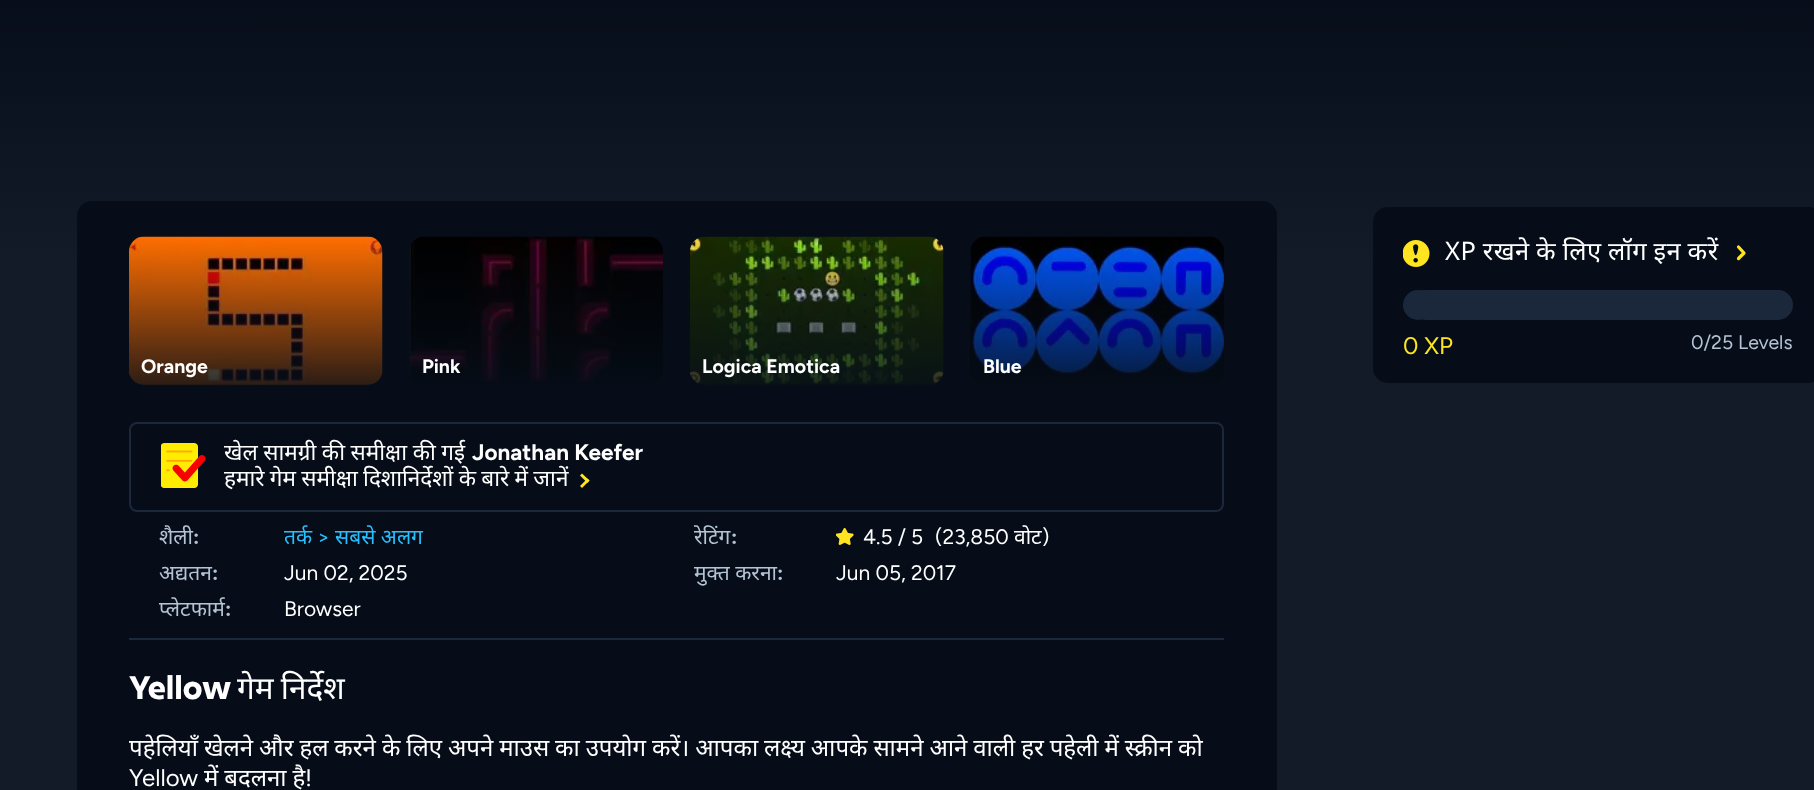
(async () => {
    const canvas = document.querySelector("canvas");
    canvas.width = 1814;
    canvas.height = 790;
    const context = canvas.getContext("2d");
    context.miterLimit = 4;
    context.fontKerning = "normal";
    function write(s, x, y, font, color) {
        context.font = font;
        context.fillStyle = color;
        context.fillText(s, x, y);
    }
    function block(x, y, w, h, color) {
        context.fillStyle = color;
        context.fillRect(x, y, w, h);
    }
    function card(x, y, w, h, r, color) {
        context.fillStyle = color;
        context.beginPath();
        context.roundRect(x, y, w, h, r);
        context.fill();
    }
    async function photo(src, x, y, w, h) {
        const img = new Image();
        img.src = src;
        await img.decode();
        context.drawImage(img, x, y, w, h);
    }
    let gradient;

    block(0, 0, 1814, 790, "rgb(255, 255, 255)");
    gradient = context.createLinearGradient(907, -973, 908, 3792);
    gradient.addColorStop(0.2, "rgb(6, 13, 25)");
    gradient.addColorStop(0.26, "rgb(19, 27, 41)");
    gradient.addColorStop(1, "rgb(19, 27, 41)");
    context.fillStyle = gradient;
    context.fillRect(0, 0, 1814, 790);
    card(1373, 207, 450, 176, 15, "rgb(6, 13, 25)");
    await photo("media/1.png", 1403, 240, 27, 27);
    context.letterSpacing = "0.5px";
    context.wordSpacing = "-0.75px";
    write("XP रखने के लिए लॉग इन करें", 1445, 260, "25.5px Noto Sans", "rgb(255, 255, 255)");
    context.beginPath();
    context.moveTo(1738.5, 247);
    context.lineTo(1744, 253);
    context.moveTo(1738.5, 258.5);
    context.lineTo(1744, 253);
    context.strokeStyle = "rgb(255, 228, 32)";
    context.lineWidth = 3.2;
    context.lineCap = "round";
    context.lineJoin = "round";
    context.stroke();
    card(1410, 290, 383, 30, 15, "rgb(27, 40, 59)");
    context.beginPath();
    context.arc(1418, 305, 15, 0, Math.PI * 2);
    context.fill();
    context.letterSpacing = "0px";
    context.wordSpacing = "0px";
    write("0 XP", 1403, 354, "24px Figtree", "rgb(255, 228, 32)");
    write("0/25 Levels", 1691, 349, "19.5px Figtree", "rgb(180, 196, 212)");
    card(77, 201, 1200, 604, 15, "rgb(6, 13, 25)");
    await photo("media/2.png", 129, 236, 254, 149);
    gradient = context.createLinearGradient(256, 386, 256, 237);
    gradient.addColorStop(0, "rgba(6, 14, 25, 0.85)");
    gradient.addColorStop(1, "rgba(6, 14, 25, 0)");
    context.fillStyle = gradient;
    context.beginPath();
    context.roundRect(129, 237, 254, 149, 15);
    context.fill();
    write("Orange", 141, 373, "bold 19.5px Figtree", "rgb(255, 255, 255)");
    await photo("media/3.png", 409, 236, 254, 149);
    gradient = context.createLinearGradient(536, 386, 536, 237);
    gradient.addColorStop(0, "rgba(6, 14, 25, 0.85)");
    gradient.addColorStop(1, "rgba(6, 14, 25, 0)");
    context.fillStyle = gradient;
    context.beginPath();
    context.roundRect(410, 237, 253, 149, 15);
    context.fill();
    write("Pink", 422, 373, "bold 19.5px Figtree", "rgb(255, 255, 255)");
    await photo("media/4.png", 690, 236, 254, 149);
    gradient = context.createLinearGradient(817, 386, 817, 237);
    gradient.addColorStop(0, "rgba(6, 14, 25, 0.85)");
    gradient.addColorStop(1, "rgba(6, 14, 25, 0)");
    context.fillStyle = gradient;
    context.beginPath();
    context.roundRect(690, 237, 254, 149, 15);
    context.fill();
    write("Logica Emotica", 702, 373, "bold 19.5px Figtree", "rgb(255, 255, 255)");
    await photo("media/5.png", 970, 236, 254, 149);
    gradient = context.createLinearGradient(1097, 386, 1097, 237);
    gradient.addColorStop(0, "rgba(6, 14, 25, 0.85)");
    gradient.addColorStop(1, "rgba(6, 14, 25, 0)");
    context.fillStyle = gradient;
    context.beginPath();
    context.roundRect(971, 237, 253, 149, 15);
    context.fill();
    write("Blue", 983, 373, "bold 19.5px Figtree", "rgb(255, 255, 255)");
    context.beginPath();
    context.roundRect(130, 423, 1093, 88, 7);
    context.strokeStyle = "rgb(27, 40, 59)";
    context.lineWidth = 2;
    context.lineJoin = "miter";
    context.stroke();
    await photo("media/6.png", 161, 443, 45, 45);
    context.wordSpacing = "-0.25px";
    write("खेल सामग्री की समीक्षा की गई", 224, 460, "22.5px Noto Sans", "rgb(255, 255, 255)");
    context.wordSpacing = "0px";
    write("Jonathan Keefer", 472, 460, "bold 22.5px Figtree", "rgb(255, 255, 255)");
    context.wordSpacing = "-0.5px";
    write("हमारे गेम समीक्षा दिशानिर्देशों के बारे में जानें", 224, 486, "22.5px Noto Sans", "rgb(255, 255, 255)");
    context.fillStyle = "rgb(255, 228, 32)";
    context.beginPath();
    context.moveTo(582, 473.5);
    context.lineTo(589.5, 480.5);
    context.lineTo(587.5, 483);
    context.lineTo(580, 475.5);
    context.closePath();
    context.fill();
    context.beginPath();
    context.moveTo(587.5, 478.5);
    context.lineTo(589.5, 480.5);
    context.lineTo(582, 488);
    context.lineTo(580, 486);
    context.closePath();
    context.fill();
    block(129, 638, 1095, 2, "rgb(27, 40, 59)");
    context.wordSpacing = "0px";
    write("शैली", 159, 544, "21px Noto Sans", "rgb(180, 196, 212)");
    write(":", 193, 544, "bold 21px Figtree", "rgb(180, 196, 212)");
    write("तर्क", 284, 544, "21px Noto Sans", "rgb(41, 191, 253)");
    write(">", 317, 544, "21px Figtree", "rgb(41, 191, 253)");
    write("सबसे अलग", 335, 544, "21px Noto Sans", "rgb(41, 191, 253)");
    write("रेटिंग", 694, 544, "21px Noto Sans", "rgb(180, 196, 212)");
    write(":", 731, 544, "bold 21px Figtree", "rgb(180, 196, 212)");
    await photo("media/7.png", 836, 528, 18, 17);
    write("4.5 / 5", 863, 544, "21px Figtree", "rgb(255, 255, 255)");
    write("(23,850", 935, 544, "21px Figtree", "rgb(255, 255, 255)");
    write("वोट", 1014, 544, "21px Noto Sans", "rgb(255, 255, 255)");
    write(")", 1042, 544, "21px Figtree", "rgb(255, 255, 255)");
    write("अद्यतन", 159, 580, "21px Noto Sans", "rgb(180, 196, 212)");
    write(":", 212, 580, "bold 21px Figtree", "rgb(180, 196, 212)");
    write("Jun 02, 2025", 284, 580, "21px Figtree", "rgb(255, 255, 255)");
    write("मुक्त करना", 694, 580, "21px Noto Sans", "rgb(180, 196, 212)");
    write(":", 777, 580, "bold 21px Figtree", "rgb(180, 196, 212)");
    write("Jun 05, 2017", 836, 580, "21px Figtree", "rgb(255, 255, 255)");
    write("प्लेटफार्म", 159, 616, "21px Noto Sans", "rgb(180, 196, 212)");
    write(":", 225, 616, "bold 21px Figtree", "rgb(180, 196, 212)");
    write("Browser", 284, 616, "21px Figtree", "rgb(255, 255, 255)");
    write("Yellow", 129, 699, "bold 31.5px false", "rgb(255, 255, 255)");
    context.wordSpacing = "-1px";
    write("गेम निर्देश", 237, 699, "31.5px Noto Sans", "rgb(255, 255, 255)");
    context.wordSpacing = "-0.3px";
    write("पहेलियाँ खेलने और हल करने के लिए अपने माउस का उपयोग करें। आपका लक्ष्य आपके सामने आने वाली हर पहेली में स्क्रीन को", 129, 756, "24px Noto Sans", "rgb(255, 255, 255)");
    context.wordSpacing = "0px";
    write("Yellow", 129, 786, "24px Figtree", "rgb(255, 255, 255)");
    context.wordSpacing = "-0.3px";
    write("में बदलना है", 204, 786, "24px Noto Sans", "rgb(255, 255, 255)");
    context.wordSpacing = "0px";
    write("!", 305, 786, "24px Figtree", "rgb(255, 255, 255)");
})();
